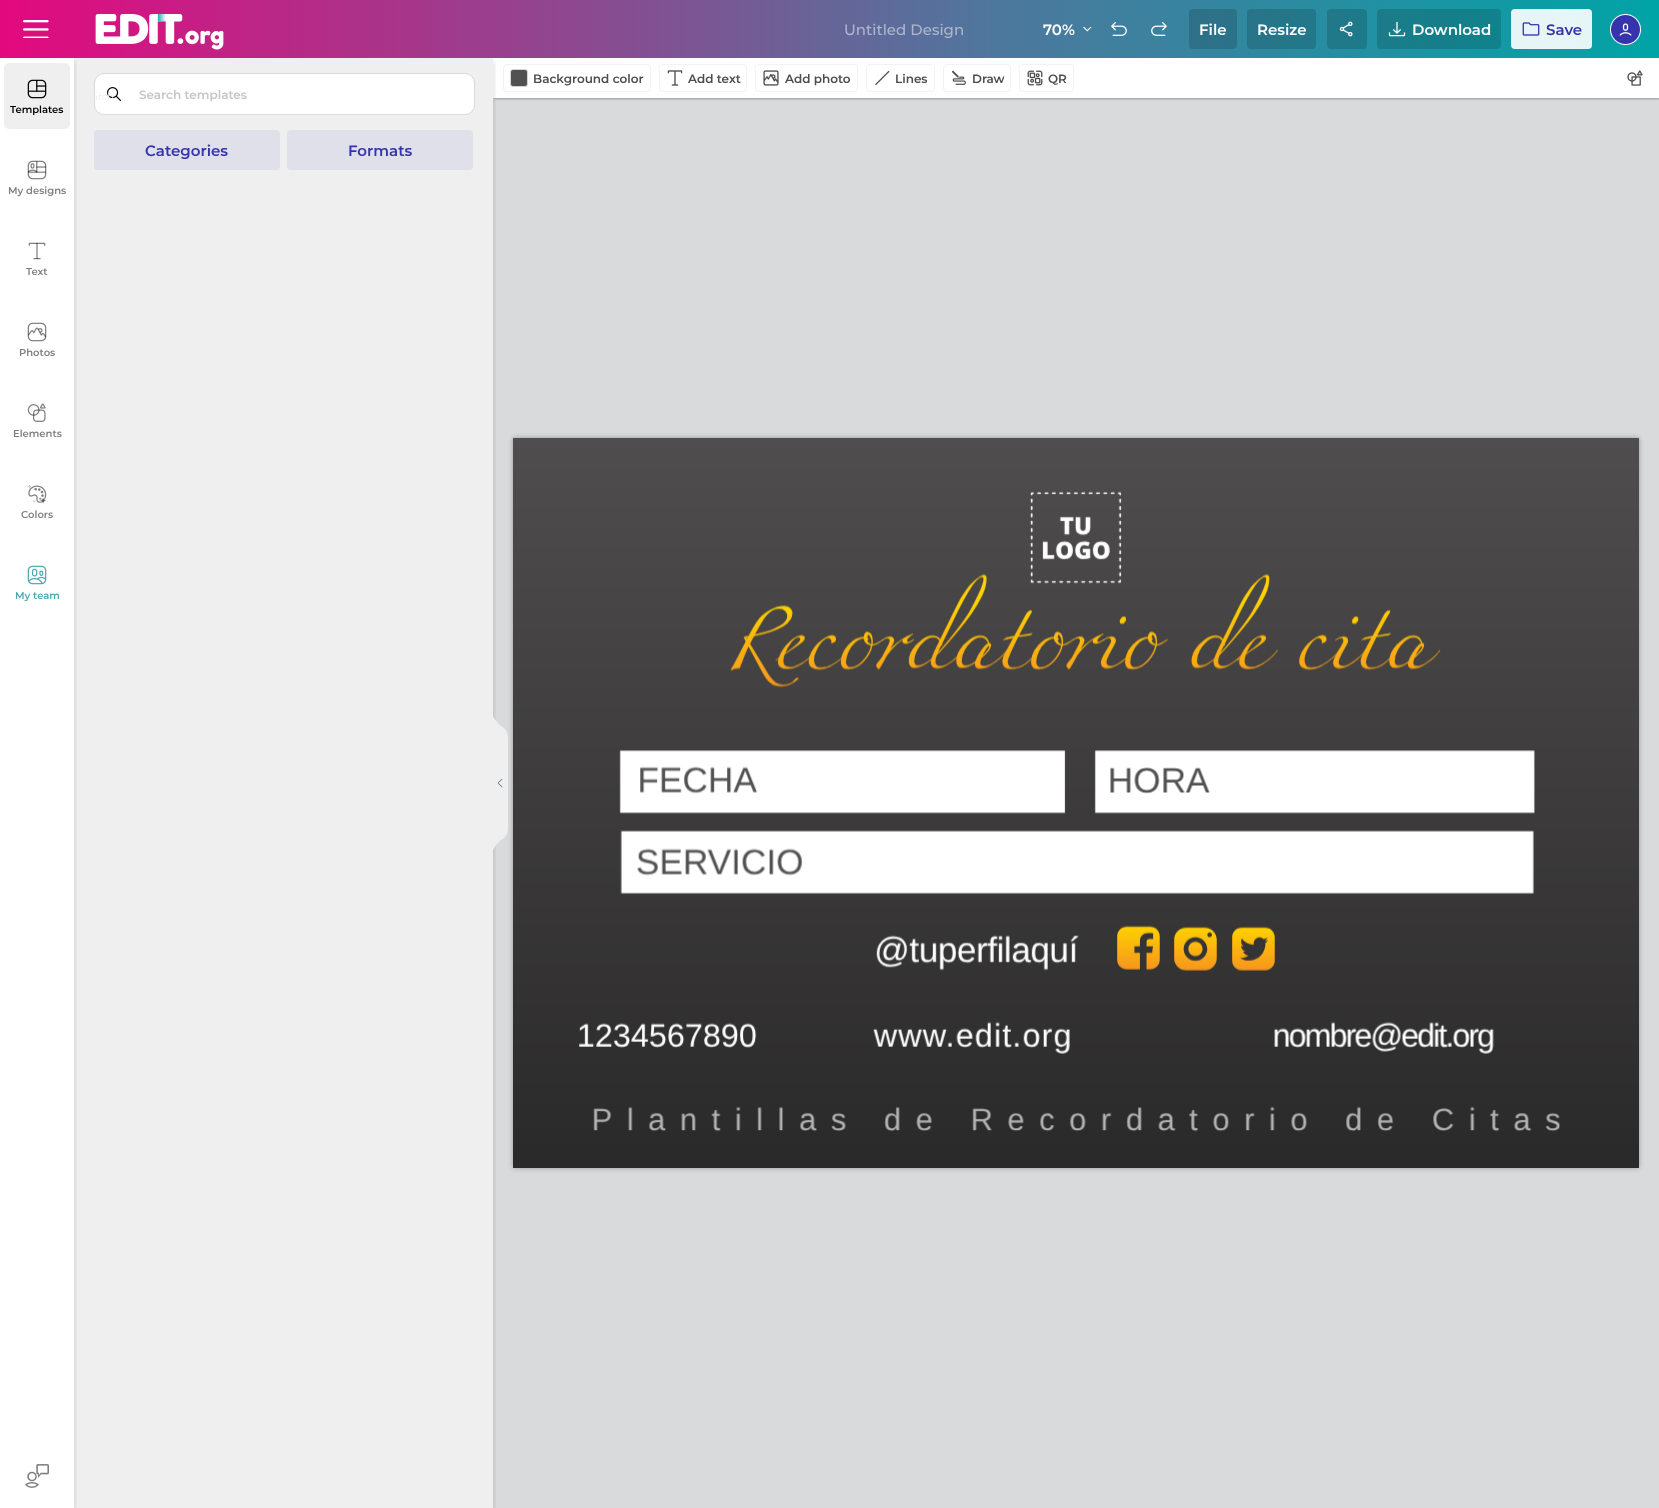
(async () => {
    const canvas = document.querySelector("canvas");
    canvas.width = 1659;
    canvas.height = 1508;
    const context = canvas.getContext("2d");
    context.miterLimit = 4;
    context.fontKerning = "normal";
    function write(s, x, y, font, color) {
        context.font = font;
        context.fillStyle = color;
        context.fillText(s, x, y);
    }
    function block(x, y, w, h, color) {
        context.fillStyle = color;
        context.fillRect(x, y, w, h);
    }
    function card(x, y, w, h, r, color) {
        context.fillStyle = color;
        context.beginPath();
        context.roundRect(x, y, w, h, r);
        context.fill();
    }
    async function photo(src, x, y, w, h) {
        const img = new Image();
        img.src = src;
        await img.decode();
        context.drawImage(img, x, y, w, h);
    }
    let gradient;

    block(0, 0, 1659, 1508, "rgb(255, 255, 255)");
    block(493, 98, 1166, 1410, "rgb(216, 218, 219)");
    context.fillStyle = "rgba(0, 0, 0, 0.3)";
    context.filter = "blur(1px)";
    context.beginPath();
    context.rect(494, 59, 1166, 40);
    context.fill();
    context.filter = "none";
    block(493, 58, 1166, 40, "rgb(255, 255, 255)");
    context.save();
    context.beginPath();
    context.rect(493, 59, 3, 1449);
    context.clip();
    context.fillStyle = "rgba(0, 0, 0, 0.16)";
    context.filter = "blur(3px)";
    context.beginPath();
    context.rect(0, 61, 493, 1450);
    context.fill();
    context.filter = "none";
    context.restore();
    context.fillStyle = "rgba(0, 0, 0, 0.3)";
    context.filter = "blur(2.5px)";
    context.beginPath();
    context.rect(513, 438, 1126, 730);
    context.fill();
    context.filter = "none";
    context.fillStyle = "rgb(239, 239, 239)";
    context.beginPath();
    context.moveTo(501, 840);
    context.bezierCurveTo(508, 836, 508, 831, 508, 825);
    context.lineTo(508, 741);
    context.bezierCurveTo(508, 735, 508, 730, 501, 726);
    context.bezierCurveTo(494, 720, 492, 714, 492, 714);
    context.lineTo(492, 852);
    context.bezierCurveTo(492, 852, 494, 846, 501, 840);
    context.fill();
    block(74, 58, 419, 1450, "rgb(239, 239, 239)");
    context.save();
    context.beginPath();
    context.rect(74, 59, 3, 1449);
    context.clip();
    context.fillStyle = "rgba(0, 0, 0, 0.16)";
    context.filter = "blur(3px)";
    context.beginPath();
    context.rect(0, 61, 74, 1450);
    context.fill();
    context.filter = "none";
    context.restore();
    gradient = context.createLinearGradient(0, 29, 1659, 29);
    gradient.addColorStop(0, "rgb(227, 9, 126)");
    gradient.addColorStop(0.6, "rgb(78, 119, 157)");
    gradient.addColorStop(1, "rgb(0, 164, 166)");
    context.fillStyle = gradient;
    context.fillRect(0, 0, 1659, 58);
    await photo("media/1.png", 23, 20, 26, 18);
    await photo("media/2.png", 95, 14, 129, 36);
    write("Untitled Design", 844, 35, "500 15px Montserrat", "rgb(173, 182, 205)");
    write("70%", 1043, 35, "600 15px Montserrat", "rgb(255, 255, 255)");
    await photo("media/3.png", 1083, 27, 9, 5);
    await photo("media/4.png", 1111, 22, 16, 14);
    await photo("media/5.png", 1151, 22, 16, 14);
    card(1189, 9, 48, 40, 4, "rgba(0, 0, 0, 0.15)");
    write("File", 1199, 35, "600 15px Montserrat", "rgb(255, 255, 255)");
    card(1247, 9, 69, 40, 4, "rgba(0, 0, 0, 0.15)");
    write("Resize", 1257, 35, "600 15px Montserrat", "rgb(255, 255, 255)");
    card(1327, 9, 40, 40, 4, "rgba(0, 0, 0, 0.15)");
    await photo("media/6.png", 1339, 21, 14, 16);
    card(1377, 9, 124, 40, 4, "rgba(0, 0, 0, 0.15)");
    await photo("media/7.png", 1388, 21, 18, 16);
    write("Download", 1412, 35, "600 15px Montserrat", "rgb(255, 255, 255)");
    card(1511, 9, 81, 40, 4, "rgba(255, 255, 255, 0.9)");
    await photo("media/8.png", 1522, 22, 18, 14);
    write("Save", 1546, 35, "600 15px Montserrat", "rgb(53, 51, 173)");
    await photo("media/9.png", 1610, 14, 31, 31);
    context.beginPath();
    context.roundRect(503.5, 64.5, 147, 27, 3.5);
    context.strokeStyle = "rgb(242, 242, 242)";
    context.stroke();
    context.fillStyle = "rgb(81, 81, 81)";
    context.beginPath();
    context.roundRect(510.5, 69.5, 17, 17, 2.5);
    context.fill();
    context.strokeStyle = "rgb(214, 212, 212)";
    context.stroke();
    write("Background color", 533, 83, "600 12px Montserrat", "rgb(77, 77, 77)");
    context.beginPath();
    context.roundRect(659.5, 64.5, 87, 27, 3.5);
    context.strokeStyle = "rgb(242, 242, 242)";
    context.stroke();
    await photo("media/10.png", 667, 70, 16, 16);
    write("Add text", 688, 83, "600 12px Montserrat", "rgb(77, 77, 77)");
    context.beginPath();
    context.roundRect(755.5, 64.5, 102, 27, 3.5);
    context.stroke();
    await photo("media/11.png", 763, 70, 16, 16);
    write("Add photo", 785, 83, "600 12px Montserrat", "rgb(77, 77, 77)");
    context.beginPath();
    context.roundRect(866.5, 64.5, 68, 27, 3.5);
    context.stroke();
    await photo("media/12.png", 875, 70, 15, 15);
    write("Lines", 895, 83, "600 12px Montserrat", "rgb(77, 77, 77)");
    context.beginPath();
    context.roundRect(943.5, 64.5, 67, 27, 3.5);
    context.stroke();
    await photo("media/13.png", 952, 70, 14, 15);
    write("Draw", 972, 83, "600 12px Montserrat", "rgb(77, 77, 77)");
    context.beginPath();
    context.roundRect(1019.5, 64.5, 54, 27, 3.5);
    context.stroke();
    await photo("media/14.png", 1027, 70, 16, 16);
    write("QR", 1048, 83, "600 12px Montserrat", "rgb(77, 77, 77)");
    await photo("media/15.png", 1627, 70, 16, 16);
    await photo("media/16.png", 513, 438, 1126, 730);
    card(4, 63, 66, 66, 5, "rgb(239, 239, 239)");
    await photo("media/17.png", 27, 79, 20, 20);
    context.fillStyle = "rgb(255, 255, 255)";
    context.beginPath();
    context.roundRect(94.5, 73.5, 380, 41, 9.5);
    context.fill();
    context.strokeStyle = "rgb(215, 218, 219)";
    context.stroke();
    await photo("media/25.png", 107, 87, 14, 14);
    write("arch", 92, 100, "10px Montserrat", "rgb(238, 238, 238)");
    write("Templates", 10, 113, "600 10px Montserrat", "rgb(0, 0, 0)");
    await photo("media/18.png", 27, 160, 20, 20);
    write("My designs", 8, 194, "600 10px Montserrat", "rgb(128, 128, 128)");
    await photo("media/19.png", 28, 242, 18, 18);
    write("Text", 26, 275, "600 10px Montserrat", "rgb(128, 128, 128)");
    await photo("media/20.png", 27, 322, 20, 20);
    write("Photos", 19, 356, "600 10px Montserrat", "rgb(128, 128, 128)");
    await photo("media/21.png", 27, 403, 19, 19);
    write("Elements", 13, 437, "600 10px Montserrat", "rgb(128, 128, 128)");
    await photo("media/22.png", 27, 485, 20, 19);
    write("Colors", 21, 518, "600 10px Montserrat", "rgb(128, 128, 128)");
    await photo("media/23.png", 27, 565, 20, 20);
    write("My team", 15, 599, "600 10px Montserrat", "rgb(79, 169, 177)");
    await photo("media/24.png", 25, 1464, 24, 24);
    write("Search templates", 139, 99, "600 12px Montserrat", "rgb(198, 198, 198)");
    card(94, 130, 186, 40, 4, "rgb(224, 224, 234)");
    write("Categories", 145, 156, "600 15px Montserrat", "rgb(53, 51, 173)");
    card(287, 130, 186, 40, 4, "rgb(224, 224, 234)");
    write("Formats", 348, 156, "600 15px Montserrat", "rgb(53, 51, 173)");
    await photo("media/26.png", 498, 779, 5, 9);
})();
